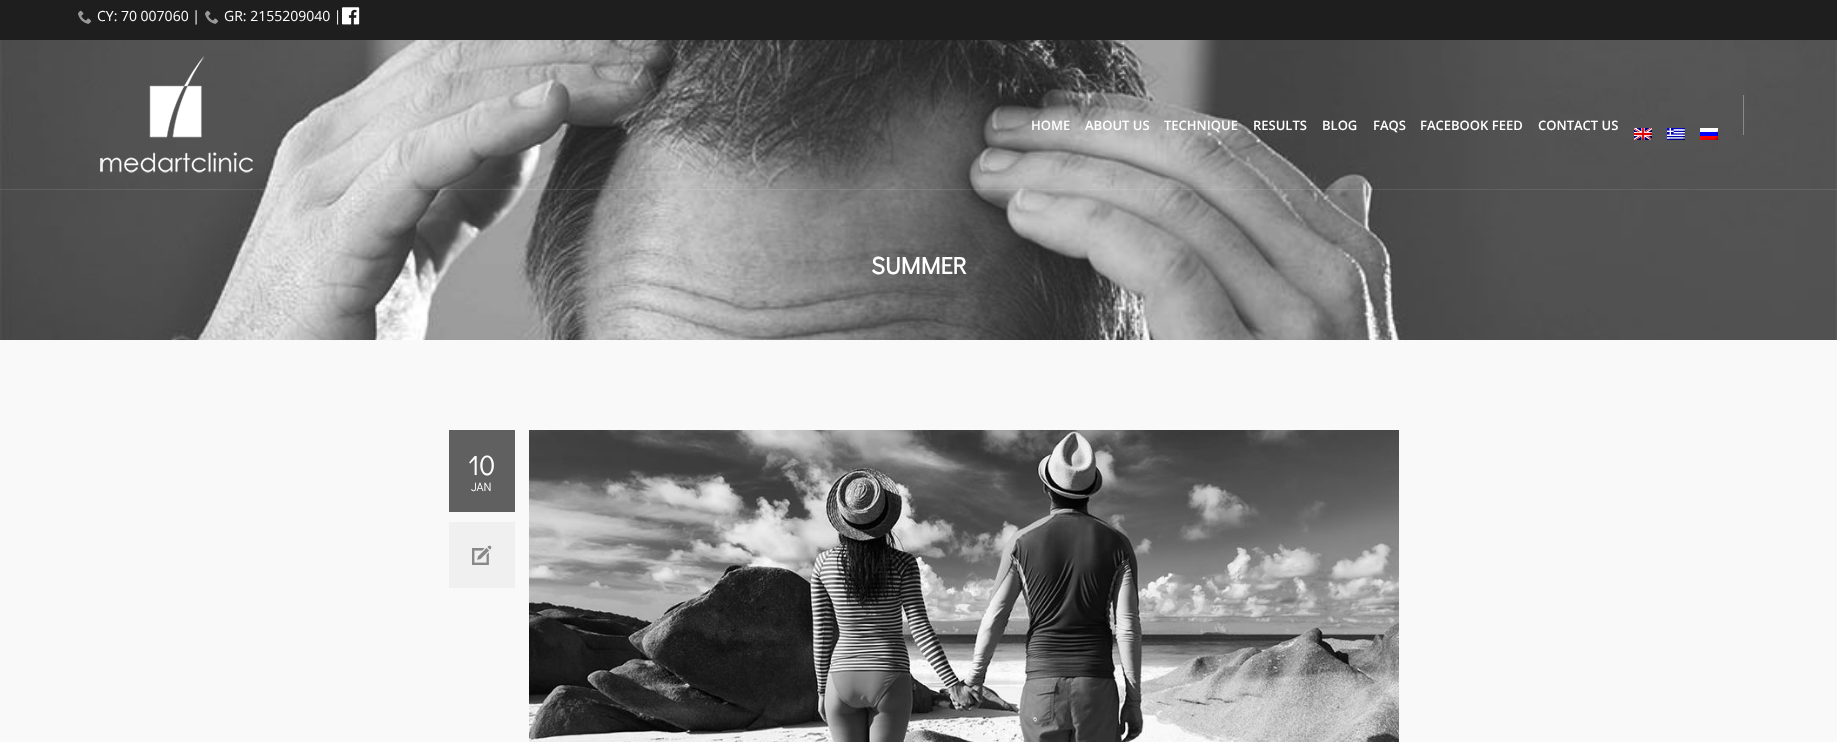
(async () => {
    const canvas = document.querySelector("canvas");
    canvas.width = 1837;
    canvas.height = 742;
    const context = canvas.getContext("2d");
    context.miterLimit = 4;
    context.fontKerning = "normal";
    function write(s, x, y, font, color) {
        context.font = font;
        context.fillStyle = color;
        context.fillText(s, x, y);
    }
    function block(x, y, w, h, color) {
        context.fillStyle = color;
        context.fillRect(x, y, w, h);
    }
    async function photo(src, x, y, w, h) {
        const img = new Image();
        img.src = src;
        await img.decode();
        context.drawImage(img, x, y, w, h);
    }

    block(0, 0, 1837, 742, "rgb(249, 249, 249)");
    block(0, 0, 1837, 40, "rgb(30, 30, 30)");
    await photo("media/1.png", 78, 10, 14, 14);
    write("CY: 70 007060 |", 97, 21, "14px Open Sans", "rgb(255, 255, 255)");
    await photo("media/1.png", 205, 10, 14, 14);
    write("GR: 2155209040 |", 224, 21, "14px Open Sans", "rgb(255, 255, 255)");
    await photo("media/2.png", 342, 7, 18, 18);
    await photo("media/7.png", 0, 40, 1837, 300);
    block(0, 189, 1837, 1, "rgba(255, 255, 255, 0.1)");
    await photo("media/3.png", 100, 56, 153, 117);
    write("HOME", 1031, 130, "600 13px Open Sans", "rgb(255, 255, 255)");
    write("ABOUT US", 1085, 130, "600 13px Open Sans", "rgb(255, 255, 255)");
    write("TECHNIQUE", 1164, 130, "600 13px Open Sans", "rgb(255, 255, 255)");
    write("RESULTS", 1253, 130, "600 13px Open Sans", "rgb(255, 255, 255)");
    write("BLOG", 1322, 130, "600 13px Open Sans", "rgb(255, 255, 255)");
    write("FAQS", 1373, 130, "600 13px Open Sans", "rgb(255, 255, 255)");
    write("FACEBOOK FEED", 1420, 130, "600 13px Open Sans", "rgb(255, 255, 255)");
    write("CONTACT US", 1538, 130, "600 13px Open Sans", "rgb(255, 255, 255)");
    block(1743, 95, 1, 40, "rgb(136, 136, 136)");
    await photo("media/4.png", 1634, 128, 18, 12);
    await photo("media/5.png", 1667, 128, 18, 12);
    await photo("media/6.png", 1700, 128, 18, 12);
    write("SUMMER", 871, 274, "bold 24px Didact Gothic", "rgb(255, 255, 255)");
    block(449, 430, 66, 82, "rgb(96, 96, 96)");
    write("10", 468, 475, "28px Didact Gothic", "rgb(255, 255, 255)");
    write("JAN", 471, 491, "12px Didact Gothic", "rgb(255, 255, 255)");
    await photo("media/8.png", 529, 430, 870, 312);
    block(449, 522, 66, 66, "rgb(240, 240, 240)");
    await photo("media/9.png", 472, 545, 20, 20);
})();
